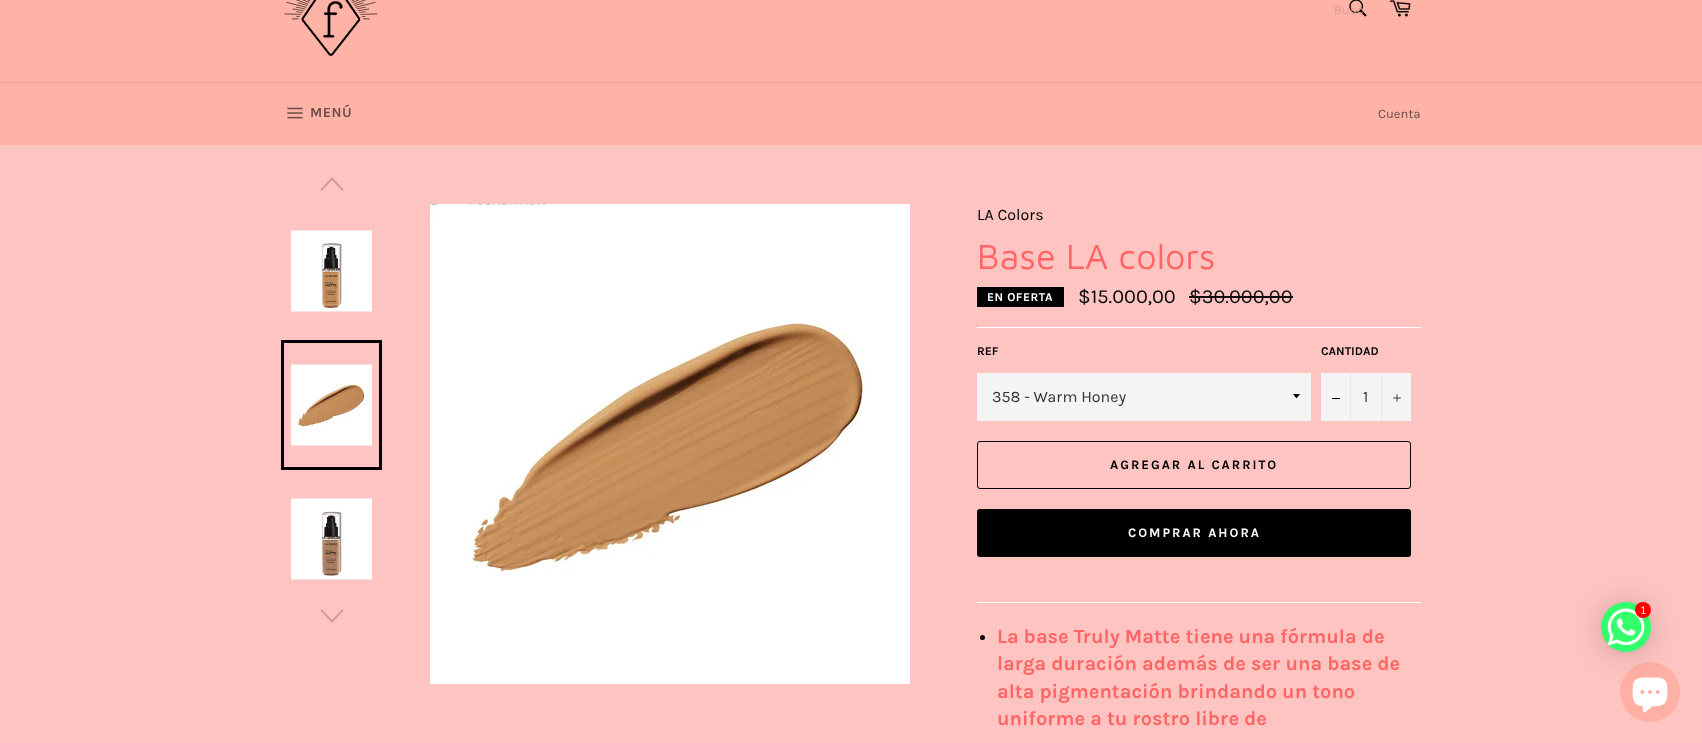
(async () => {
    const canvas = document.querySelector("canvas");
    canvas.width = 1702;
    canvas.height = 743;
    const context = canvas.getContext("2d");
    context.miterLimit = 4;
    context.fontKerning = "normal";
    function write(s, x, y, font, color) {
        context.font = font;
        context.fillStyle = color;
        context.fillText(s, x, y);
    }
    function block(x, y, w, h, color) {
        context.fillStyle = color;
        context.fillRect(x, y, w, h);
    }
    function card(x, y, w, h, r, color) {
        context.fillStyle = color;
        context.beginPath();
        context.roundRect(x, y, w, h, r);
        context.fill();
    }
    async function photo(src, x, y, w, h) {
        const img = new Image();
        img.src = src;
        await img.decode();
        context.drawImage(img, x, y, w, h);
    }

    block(0, 0, 1702, 743, "rgb(255, 179, 167)");
    await photo("media/1.png", 284, 0, 94, 56);
    await photo("media/2.png", 1349, 0, 18, 17);
    write("Busc", 1334, 14, "13px Karla", "rgb(223, 157, 146)");
    await photo("media/3.png", 1389, 0, 22, 17);
    block(0, 82, 1702, 1, "rgb(255, 157, 142)");
    await photo("media/4.png", 287, 107, 16, 12);
    context.letterSpacing = "0.5px";
    write("MENÚ", 310, 117, "bold 14px Karla", "rgb(110, 77, 72)");
    context.letterSpacing = "0px";
    write("Cuenta", 1378, 118, "13px Karla", "rgb(110, 77, 72)");
    block(0, 145, 1702, 598, "rgb(253, 196, 193)");
    context.fillStyle = "rgb(202, 157, 154)";
    context.beginPath();
    context.moveTo(342.5, 191);
    context.lineTo(343.5, 189.5);
    context.lineTo(332, 177);
    context.lineTo(320.5, 189.5);
    context.lineTo(321.5, 191);
    context.lineTo(332, 180);
    context.closePath();
    context.fill();
    await photo("media/5.png", 291, 230, 81, 82);
    await photo("media/6.png", 291, 364, 81, 82);
    context.strokeStyle = "rgb(0, 0, 0)";
    context.lineWidth = 3;
    context.strokeRect(282.5, 341.5, 98, 127);
    await photo("media/7.png", 291, 498, 81, 82);
    context.beginPath();
    context.moveTo(342.5, 609);
    context.lineTo(343.5, 610.5);
    context.lineTo(332, 623);
    context.lineTo(320.5, 610.5);
    context.lineTo(321.5, 609);
    context.lineTo(332, 620);
    context.closePath();
    context.fill();
    await photo("media/8.png", 430, 204, 480, 480);
    write("LA Colors", 977, 220, "16px Karla", "rgb(0, 0, 0)");
    write("Base LA colors", 977, 269, "36px Maven Pro", "rgb(255, 101, 100)");
    block(977, 287, 87, 20, "rgb(0, 0, 0)");
    context.letterSpacing = "0.5px";
    write("EN OFERTA", 987, 301, "bold 12px Karla", "rgb(255, 255, 255)");
    context.letterSpacing = "0px";
    write("$15.000,00", 1078, 303, "20px Karla", "rgb(0, 0, 0)");
    write("$30.000,00", 1189, 303, "20px Karla", "rgb(13, 13, 13)");
    block(1189, 296, 104, 2, "rgb(13, 13, 13)");
    block(977, 327, 444, 1, "rgb(255, 255, 255)");
    write("REF", 977, 355, "bold 12px Karla", "rgb(0, 0, 0)");
    block(977, 373, 334, 48, "rgb(244, 244, 244)");
    context.fillStyle = "rgb(0, 0, 0)";
    context.beginPath();
    context.moveTo(1293, 394);
    context.bezierCurveTo(1297.5, 399.5, 1295.5, 399.5, 1300, 394);
    context.closePath();
    context.fill();
    write("358 - Warm Honey", 992, 402, "16px Karla", "rgb(51, 51, 51)");
    write("CANTIDAD", 1321, 355, "bold 12px Karla", "rgb(0, 0, 0)");
    block(1321, 373, 90, 48, "rgb(244, 244, 244)");
    block(1350, 373, 1, 48, "rgb(231, 231, 231)");
    block(1332, 398, 8, 1, "rgb(0, 0, 0)");
    write("1", 1363, 402, "16px Karla", "rgb(51, 51, 51)");
    block(1381, 373, 1, 48, "rgb(231, 231, 231)");
    await photo("media/9.png", 1393, 394, 8, 8);
    context.beginPath();
    context.roundRect(977.5, 441.5, 433, 47, 2.5);
    context.lineWidth = 1;
    context.stroke();
    context.letterSpacing = "2px";
    write("AGREGAR AL CARRITO", 1110, 469, "bold 13px Karla", "rgb(0, 0, 0)");
    card(977, 509, 434, 48, 3, "rgb(0, 0, 0)");
    write("COMPRAR AHORA", 1128, 537, "bold 13px Karla", "rgb(255, 255, 255)");
    block(977, 602, 444, 1, "rgb(255, 255, 255)");
    context.fillStyle = "rgb(0, 0, 0)";
    context.beginPath();
    context.arc(982.5, 637.5, 2.5, 0, Math.PI * 2);
    context.fill();
    context.letterSpacing = "0px";
    write("La base Truly Matte tiene una fórmula de", 997, 643, "bold 20px Karla", "rgb(255, 101, 100)");
    write("larga duración además de ser una base de", 997, 670, "bold 20px Karla", "rgb(255, 101, 100)");
    write("alta pigmentación brindando un tono", 997, 698, "bold 20px Karla", "rgb(255, 101, 100)");
    write("uniforme a tu rostro libre de", 997, 725, "bold 20px Karla", "rgb(255, 101, 100)");
    context.fillStyle = "rgb(255, 176, 164)";
    context.beginPath();
    context.arc(1650, 692, 30, 0, Math.PI * 2);
    context.fill();
    await photo("media/11.png", 1632, 677, 36, 36);
    context.fillStyle = "rgba(0, 0, 0, 0.16)";
    context.filter = "blur(16px)";
    context.beginPath();
    context.roundRect(1601, 604, 50, 50, 25);
    context.fill();
    context.filter = "none";
    context.fillStyle = "rgba(0, 0, 0, 0.06)";
    context.filter = "blur(3px)";
    context.beginPath();
    context.roundRect(1601, 603, 50, 50, 25);
    context.fill();
    context.filter = "none";
    context.fillStyle = "rgb(51, 255, 108)";
    context.beginPath();
    context.arc(1626, 627, 25, 0, Math.PI * 2);
    context.fill();
    await photo("media/10.png", 1607, 608, 38, 38);
    context.fillStyle = "rgb(255, 0, 0)";
    context.beginPath();
    context.arc(1643, 610, 8, 0, Math.PI * 2);
    context.fill();
    write("1", 1641, 614, "11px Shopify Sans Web", "rgb(255, 255, 255)");
})();
